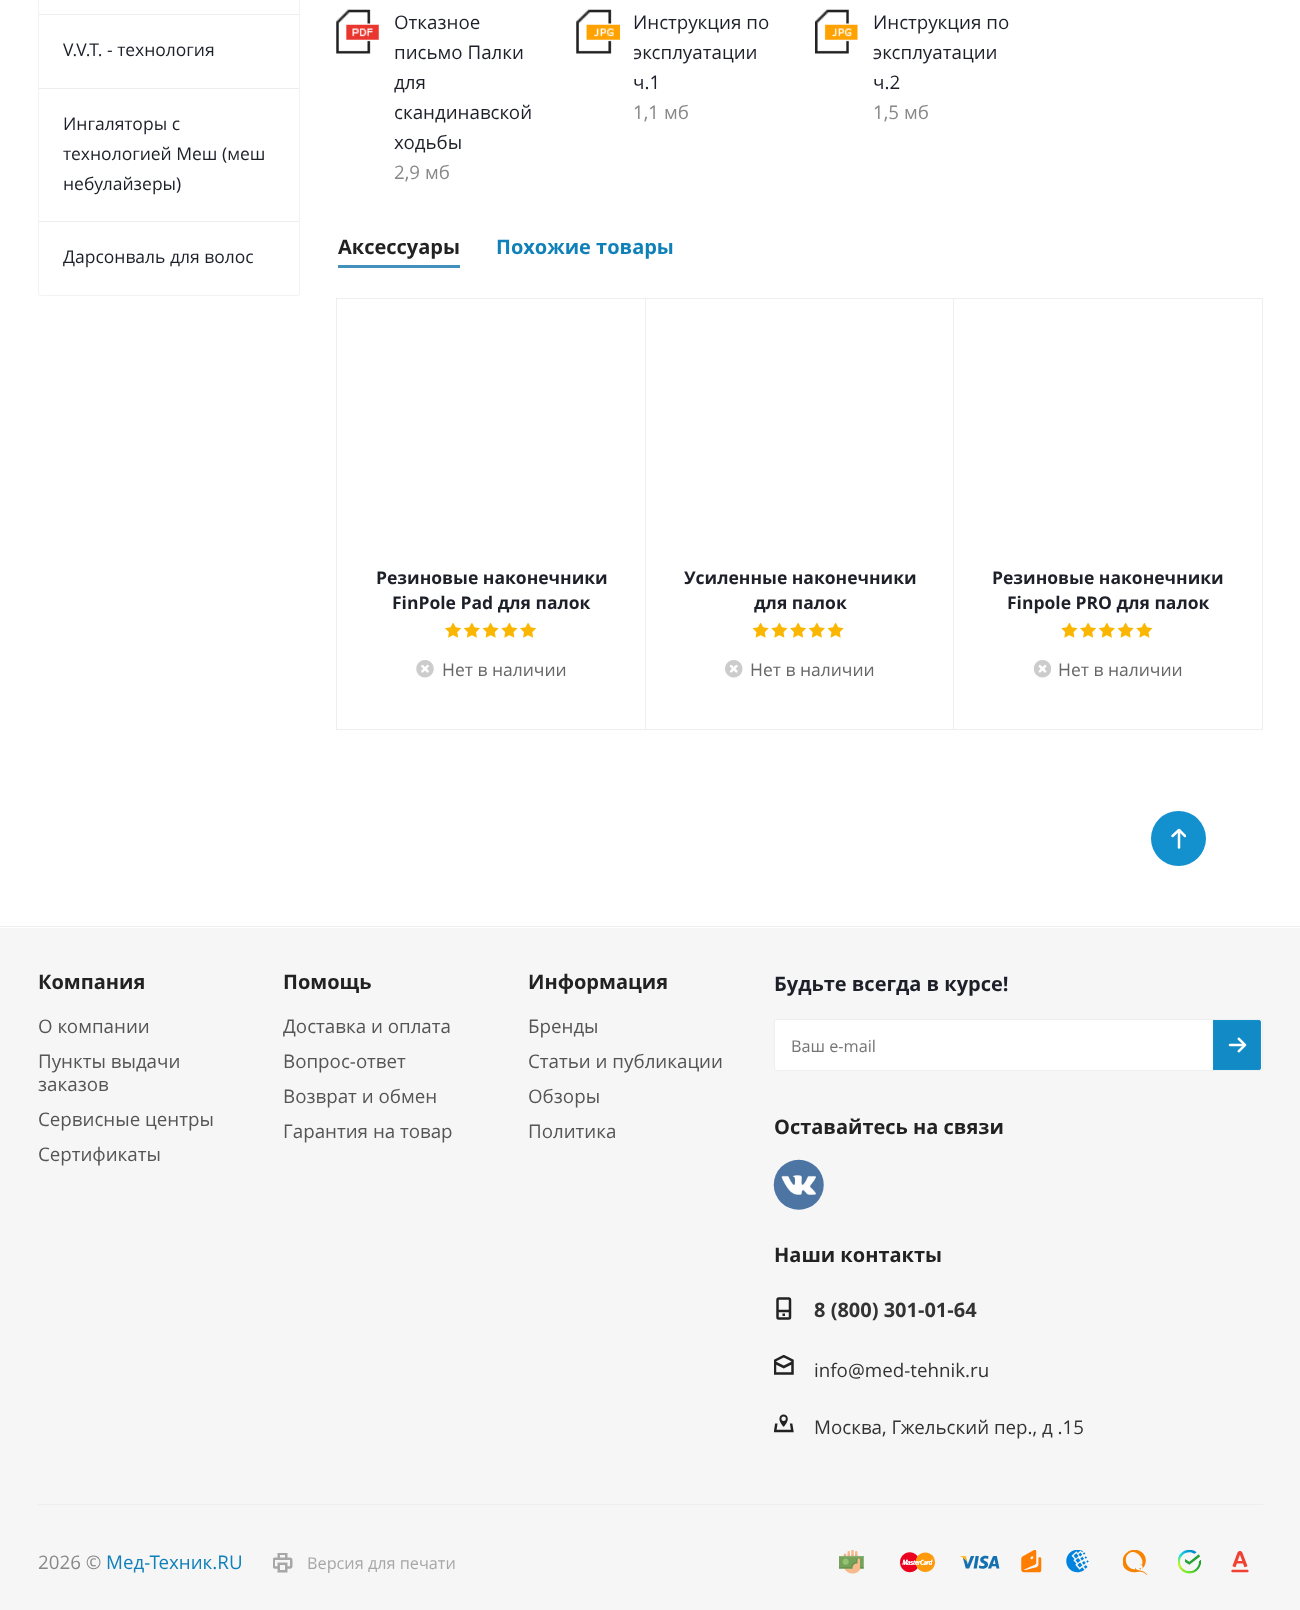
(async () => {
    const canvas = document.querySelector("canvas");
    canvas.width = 1300;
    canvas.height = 1610;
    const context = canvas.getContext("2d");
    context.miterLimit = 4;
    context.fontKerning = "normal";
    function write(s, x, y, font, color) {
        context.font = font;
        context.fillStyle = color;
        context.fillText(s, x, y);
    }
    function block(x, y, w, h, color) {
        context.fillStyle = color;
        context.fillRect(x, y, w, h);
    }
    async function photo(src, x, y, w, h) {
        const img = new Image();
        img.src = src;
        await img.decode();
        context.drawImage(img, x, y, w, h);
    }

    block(0, 0, 1300, 1610, "rgb(255, 255, 255)");
    context.beginPath();
    context.roundRect(38.5, -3.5, 261, 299, 2);
    context.strokeStyle = "rgb(242, 242, 242)";
    context.stroke();
    block(39, 14, 260, 1, "rgb(235, 238, 241)");
    block(39, 88, 260, 1, "rgb(235, 238, 241)");
    write("V.V.T. - технология", 63, 56, "17.5px Open Sans", "rgb(29, 32, 41)");
    block(39, 221, 260, 1, "rgb(235, 238, 241)");
    write("Ингаляторы с", 63, 130, "17.5px Open Sans", "rgb(29, 32, 41)");
    write("технологией Меш (меш", 63, 160, "17.5px Open Sans", "rgb(29, 32, 41)");
    write("небулайзеры)", 63, 190, "17.5px Open Sans", "rgb(29, 32, 41)");
    write("Дарсонваль для волос", 63, 263, "17.5px Open Sans", "rgb(29, 32, 41)");
    await photo("media/1.png", 336, 9, 43, 45);
    write("Отказное", 394, 29, "18.75px Open Sans", "rgb(29, 32, 41)");
    write("письмо Палки", 394, 59, "18.75px Open Sans", "rgb(29, 32, 41)");
    write("для", 394, 89, "18.75px Open Sans", "rgb(29, 32, 41)");
    write("скандинавской", 394, 119, "18.75px Open Sans", "rgb(29, 32, 41)");
    write("ходьбы", 394, 149, "18.75px Open Sans", "rgb(29, 32, 41)");
    write("2,9 мб", 394, 179, "18.75px Open Sans", "rgb(136, 136, 136)");
    await photo("media/2.png", 576, 9, 44, 45);
    write("Инструкция по", 633, 29, "18.75px Open Sans", "rgb(29, 32, 41)");
    context.save();
    context.beginPath();
    context.rect(634, 6, 145, 90);
    context.clip();
    write("эксплуатации", 633, 59, "18.75px Open Sans", "rgb(29, 32, 41)");
    context.restore();
    write("ч.1", 633, 89, "18.75px Open Sans", "rgb(29, 32, 41)");
    write("1,1 мб", 633, 119, "18.75px Open Sans", "rgb(136, 136, 136)");
    await photo("media/3.png", 815, 9, 43, 45);
    write("Инструкция по", 873, 29, "18.75px Open Sans", "rgb(29, 32, 41)");
    write("эксплуатации", 873, 59, "18.75px Open Sans", "rgb(29, 32, 41)");
    write("ч.2", 873, 89, "18.75px Open Sans", "rgb(29, 32, 41)");
    write("1,5 мб", 873, 119, "18.75px Open Sans", "rgb(136, 136, 136)");
    block(338, 265, 122, 3, "rgb(67, 144, 189)");
    write("Аксессуары", 338, 254, "bold 20px Open Sans", "rgb(34, 34, 34)");
    write("Похожие товары", 496, 254, "bold 20px Open Sans", "rgb(16, 128, 184)");
    context.strokeStyle = "rgb(238, 238, 238)";
    context.strokeRect(336.5, 298.5, 309, 431);
    write("Резиновые наконечники", 376, 584, "bold 17.5px Open Sans", "rgb(29, 32, 41)");
    write("FinPole Pad для палок", 392, 609, "bold 17.5px Open Sans", "rgb(29, 32, 41)");
    await photo("media/4.png", 445, 623, 17, 15);
    await photo("media/5.png", 464, 623, 19, 15);
    await photo("media/6.png", 483, 623, 16, 15);
    await photo("media/7.png", 501, 623, 17, 15);
    await photo("media/4.png", 520, 623, 17, 15);
    await photo("media/8.png", 416, 660, 18, 18);
    write("Нет в наличии", 442, 676, "17.5px Open Sans", "rgb(102, 102, 102)");
    context.strokeRect(645.5, 298.5, 308, 431);
    write("Усиленные наконечники", 684, 584, "bold 17.5px Open Sans", "rgb(29, 32, 41)");
    write("для палок", 754, 609, "bold 17.5px Open Sans", "rgb(29, 32, 41)");
    await photo("media/6.png", 753, 623, 16, 15);
    await photo("media/7.png", 771, 623, 17, 15);
    await photo("media/4.png", 790, 623, 17, 15);
    await photo("media/5.png", 809, 623, 19, 15);
    await photo("media/6.png", 828, 623, 16, 15);
    await photo("media/9.png", 725, 660, 18, 18);
    write("Нет в наличии", 750, 676, "17.5px Open Sans", "rgb(102, 102, 102)");
    context.strokeRect(953.5, 298.5, 309, 431);
    write("Резиновые наконечники", 992, 584, "bold 17.5px Open Sans", "rgb(29, 32, 41)");
    write("Finpole PRO для палок", 1007, 609, "bold 17.5px Open Sans", "rgb(29, 32, 41)");
    await photo("media/7.png", 1061, 623, 17, 15);
    await photo("media/4.png", 1080, 623, 17, 15);
    await photo("media/5.png", 1099, 623, 19, 15);
    await photo("media/6.png", 1118, 623, 16, 15);
    await photo("media/7.png", 1136, 623, 17, 15);
    await photo("media/10.png", 1034, 660, 17, 18);
    write("Нет в наличии", 1058, 676, "17.5px Open Sans", "rgb(102, 102, 102)");
    context.fillStyle = "rgb(19, 144, 206)";
    context.beginPath();
    context.arc(1178.5, 838.5, 27.5, 0, Math.PI * 2);
    context.fill();
    context.beginPath();
    context.moveTo(1179, 830);
    context.lineTo(1179, 847.5);
    context.strokeStyle = "rgb(255, 255, 255)";
    context.lineWidth = 2.5;
    context.lineCap = "round";
    context.lineJoin = "round";
    context.stroke();
    context.save();
    context.beginPath();
    context.rect(1171, 829, 15, 125);
    context.clip();
    context.beginPath();
    context.moveTo(1172.5, 836);
    context.lineTo(1179, 830);
    context.lineTo(1185, 836);
    context.stroke();
    context.restore();
    block(0, 926, 1300, 1, "rgb(238, 238, 238)");
    block(0, 928, 1300, 682, "rgb(246, 246, 247)");
    write("Компания", 38, 989, "bold 20px Open Sans", "rgb(34, 34, 34)");
    write("О компании", 38, 1033, "18.75px Open Sans", "rgb(85, 85, 85)");
    write("Пункты выдачи", 38, 1068, "18.75px Open Sans", "rgb(85, 85, 85)");
    write("заказов", 38, 1091, "18.75px Open Sans", "rgb(85, 85, 85)");
    write("Сервисные центры", 38, 1126, "18.75px Open Sans", "rgb(85, 85, 85)");
    write("Сертификаты", 38, 1161, "18.75px Open Sans", "rgb(85, 85, 85)");
    write("Помощь", 283, 989, "bold 20px Open Sans", "rgb(34, 34, 34)");
    write("Доставка и оплата", 283, 1033, "18.75px Open Sans", "rgb(85, 85, 85)");
    write("Вопрос-ответ", 283, 1068, "18.75px Open Sans", "rgb(85, 85, 85)");
    write("Возврат и обмен", 283, 1103, "18.75px Open Sans", "rgb(85, 85, 85)");
    write("Гарантия на товар", 283, 1138, "18.75px Open Sans", "rgb(85, 85, 85)");
    write("Информация", 528, 989, "bold 20px Open Sans", "rgb(34, 34, 34)");
    write("Бренды", 528, 1033, "18.75px Open Sans", "rgb(85, 85, 85)");
    write("Статьи и публикации", 528, 1068, "18.75px Open Sans", "rgb(85, 85, 85)");
    write("Обзоры", 528, 1103, "18.75px Open Sans", "rgb(85, 85, 85)");
    write("Политика", 528, 1138, "18.75px Open Sans", "rgb(85, 85, 85)");
    write("Будьте всегда в курсе!", 774, 991, "bold 20px Open Sans", "rgb(29, 32, 41)");
    context.fillStyle = "rgb(255, 255, 255)";
    context.beginPath();
    context.roundRect(774.5, 1019.5, 488, 51, 2);
    context.fill();
    context.strokeStyle = "rgb(238, 238, 238)";
    context.lineWidth = 1;
    context.lineJoin = "miter";
    context.stroke();
    write("Ваш e-mail", 791, 1052, "16.25px Open Sans", "rgb(117, 117, 117)");
    context.fillStyle = "rgb(17, 138, 198)";
    context.beginPath();
    context.roundRect(1213, 1020, 48, 50, [0, 2.5, 2.5, 0]);
    context.fill();
    await photo("media/11.png", 1228, 1037, 19, 16);
    context.beginPath();
    context.roundRect(1213.5, 1020.5, 47, 49, [0, 2, 2, 0]);
    context.strokeStyle = "rgb(19, 144, 206)";
    context.stroke();
    write("Оставайтесь на связи", 774, 1134, "bold 20px Open Sans", "rgb(34, 34, 34)");
    await photo("media/12.png", 773, 1159, 51, 51);
    write("Наши контакты", 774, 1262, "bold 20px Open Sans", "rgb(34, 34, 34)");
    await photo("media/13.png", 776, 1297, 16, 23);
    write("8 (800) 301-01-64", 814, 1317, "bold 20px Open Sans", "rgb(51, 51, 51)");
    await photo("media/14.png", 774, 1355, 20, 20);
    write("info@med-tehnik.ru", 814, 1377, "18.75px Open Sans", "rgb(51, 51, 51)");
    await photo("media/15.png", 774, 1414, 20, 19);
    write("Москва, Гжельский пер., д .15", 814, 1434, "18.75px Open Sans", "rgb(51, 51, 51)");
    block(38, 1504, 1225, 1, "rgb(238, 238, 238)");
    write("2026 ©", 38, 1569, "18.75px Open Sans", "rgb(136, 136, 136)");
    write("Мед-Техник.RU", 106, 1569, "18.75px Open Sans", "rgb(16, 128, 184)");
    await photo("media/16.png", 273, 1553, 20, 20);
    write("Версия для печати", 307, 1569, "16.25px Open Sans", "rgb(167, 167, 167)");
    await photo("media/17.png", 839, 1550, 25, 24);
    await photo("media/18.png", 900, 1552, 35, 21);
    await photo("media/19.png", 960, 1555, 40, 14);
    await photo("media/20.png", 1021, 1550, 21, 23);
    await photo("media/21.png", 1066, 1550, 23, 23);
    await photo("media/22.png", 1123, 1550, 24, 25);
    await photo("media/23.png", 1178, 1550, 23, 24);
    await photo("media/24.png", 1231, 1551, 18, 22);
})();
